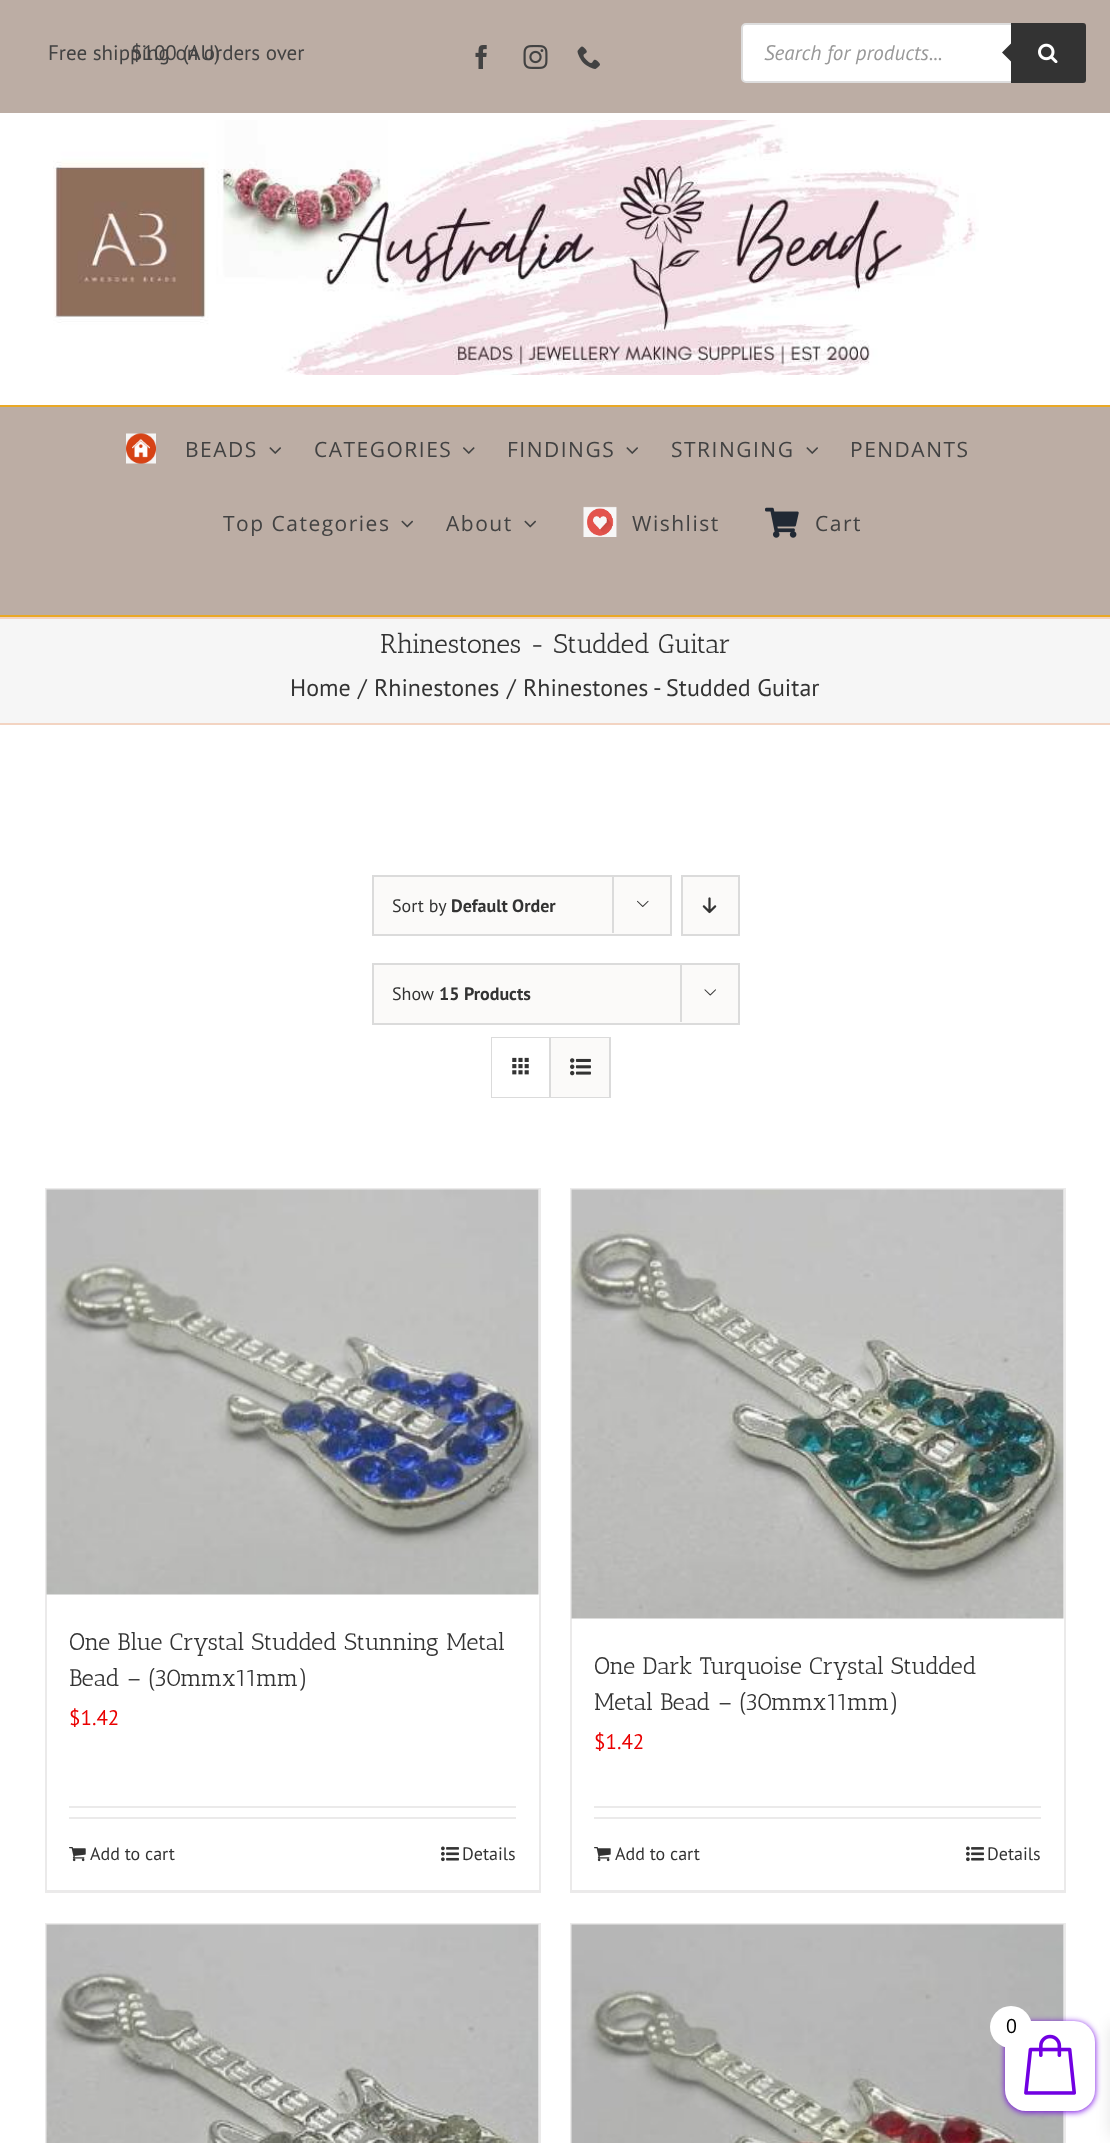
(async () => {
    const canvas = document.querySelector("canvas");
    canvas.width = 1110;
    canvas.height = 2143;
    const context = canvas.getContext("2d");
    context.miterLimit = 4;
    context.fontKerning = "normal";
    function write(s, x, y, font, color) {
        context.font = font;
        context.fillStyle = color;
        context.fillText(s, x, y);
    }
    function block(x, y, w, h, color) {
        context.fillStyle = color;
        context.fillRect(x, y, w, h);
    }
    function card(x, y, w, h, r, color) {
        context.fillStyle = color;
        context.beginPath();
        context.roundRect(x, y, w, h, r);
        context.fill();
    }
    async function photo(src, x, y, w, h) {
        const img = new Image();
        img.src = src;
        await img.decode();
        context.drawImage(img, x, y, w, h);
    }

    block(0, 0, 1110, 2143, "rgb(255, 255, 255)");
    block(0, 0, 1110, 113, "rgb(188, 173, 164)");
    write("Free shipping on orders over", 48, 60, "21px PT Sans", "rgb(66, 66, 66)");
    write("$100 (AU)", 131, 60, "21px PT Sans", "rgb(66, 66, 66)");
    await photo("media/1.png", 475, 45, 12, 24);
    await photo("media/2.png", 523, 45, 25, 24);
    await photo("media/3.png", 577, 46, 23, 23);
    context.fillStyle = "rgb(255, 255, 255)";
    context.beginPath();
    context.roundRect(742, 24, 343, 58, 4);
    context.fill();
    context.strokeStyle = "rgb(221, 221, 221)";
    context.lineWidth = 2;
    context.stroke();
    write("Search for products...", 764, 60, "italic 21px PT Sans", "rgb(153, 153, 153)");
    context.fillStyle = "rgb(51, 51, 51)";
    context.beginPath();
    context.roundRect(1011, 23, 75, 60, [0, 3, 3, 0]);
    context.fill();
    context.beginPath();
    context.moveTo(1014, 40.5);
    context.lineTo(1014, 64.5);
    context.lineTo(1002, 52.5);
    context.closePath();
    context.fill();
    await photo("media/4.png", 1038, 43, 20, 20);
    await photo("media/5.png", 53, 120, 926, 255);
    block(0, 407, 1110, 208, "rgb(188, 173, 164)");
    block(0, 405, 1110, 2, "rgb(233, 168, 37)");
    block(0, 615, 1110, 2, "rgb(233, 168, 37)");
    await photo("media/6.png", 126, 433, 30, 31);
    context.letterSpacing = "1.5px";
    write("BEADS", 185, 457, "21px Open Sans", "rgb(66, 66, 66)");
    await photo("media/7.png", 269, 447, 12, 7);
    write("CATEGORIES", 314, 457, "21px Open Sans", "rgb(66, 66, 66)");
    await photo("media/8.png", 463, 447, 12, 7);
    write("FINDINGS", 507, 457, "21px Open Sans", "rgb(66, 66, 66)");
    await photo("media/7.png", 626, 447, 12, 7);
    write("STRINGING", 671, 457, "21px Open Sans", "rgb(66, 66, 66)");
    await photo("media/7.png", 806, 447, 12, 7);
    write("PENDANTS", 850, 457, "21px Open Sans", "rgb(66, 66, 66)");
    write("Top Categories", 223, 531, "21px Open Sans", "rgb(66, 66, 66)");
    await photo("media/9.png", 401, 520, 12, 8);
    write("About", 446, 531, "21px Open Sans", "rgb(66, 66, 66)");
    await photo("media/9.png", 524, 520, 12, 8);
    await photo("media/10.png", 583, 506, 34, 31);
    write("Wishlist", 632, 531, "21px Open Sans", "rgb(66, 66, 66)");
    await photo("media/11.png", 765, 507, 34, 31);
    write("Cart", 815, 531, "21px Open Sans", "rgb(66, 66, 66)");
    block(0, 619, 1110, 104, "rgb(246, 246, 246)");
    block(0, 617, 1110, 2, "rgb(243, 212, 194)");
    block(0, 723, 1110, 2, "rgb(243, 212, 194)");
    context.letterSpacing = "0px";
    write("Rhinestones - Studded Guitar", 380, 653, "27px Antic Slab", "rgb(51, 51, 51)");
    write("Home", 290, 696, "24px PT Sans", "rgb(51, 51, 51)");
    write("/", 358, 696, "24px PT Sans", "rgb(51, 51, 51)");
    write("Rhinestones", 374, 696, "24px PT Sans", "rgb(51, 51, 51)");
    write("/", 507, 696, "24px PT Sans", "rgb(51, 51, 51)");
    write("Rhinestones - Studded Guitar", 523, 696, "24px PT Sans", "rgb(51, 51, 51)");
    context.fillStyle = "rgb(251, 250, 249)";
    context.beginPath();
    context.rect(373, 876, 298, 59);
    context.fill();
    context.strokeStyle = "rgb(219, 219, 219)";
    context.stroke();
    write("Sort by", 392, 912, "18px PT Sans", "rgb(51, 51, 51)");
    write("Default Order", 451, 912, "bold 18px PT Sans", "rgb(51, 51, 51)");
    block(612, 875, 2, 58, "rgb(219, 219, 219)");
    await photo("media/12.png", 637, 900, 12, 7);
    context.fillStyle = "rgb(251, 250, 249)";
    context.beginPath();
    context.rect(682, 876, 57, 59);
    context.fill();
    context.stroke();
    await photo("media/13.png", 702, 897, 15, 17);
    context.beginPath();
    context.rect(373, 964, 366, 60);
    context.fill();
    context.stroke();
    write("Show", 392, 1000, "18px PT Sans", "rgb(51, 51, 51)");
    write("15 Products", 439, 1000, "bold 18px PT Sans", "rgb(51, 51, 51)");
    block(680, 963, 2, 59, "rgb(219, 219, 219)");
    await photo("media/14.png", 704, 989, 12, 7);
    context.strokeRect(492, 1038, 118, 59);
    block(492, 1038, 57, 59, "rgb(255, 255, 255)");
    block(549, 1038, 2, 59, "rgb(219, 219, 219)");
    await photo("media/15.png", 512, 1057, 17, 18);
    block(551, 1038, 58, 59, "rgb(251, 250, 249)");
    await photo("media/16.png", 570, 1058, 21, 18);
    block(45, 1188, 495, 2, "rgb(235, 234, 234)");
    block(539, 1188, 2, 705, "rgb(235, 234, 234)");
    block(45, 1890, 495, 3, "rgb(235, 234, 234)");
    block(45, 1188, 2, 705, "rgb(235, 234, 234)");
    await photo("media/17.png", 46, 1189, 493, 406);
    write("One Blue Crystal Studded Stunning Metal", 69, 1650, "24px Antic Slab", "rgb(51, 51, 51)");
    write("Bead – (30mmx11mm)", 69, 1686, "24px Antic Slab", "rgb(51, 51, 51)");
    write("$1.42", 69, 1725, "21px PT Sans", "rgb(234, 0, 0)");
    block(69, 1806, 447, 2, "rgb(235, 234, 234)");
    block(69, 1817, 447, 2, "rgb(235, 234, 234)");
    await photo("media/18.png", 69, 1847, 17, 15);
    write("Add to cart", 90, 1860, "18px PT Sans", "rgb(51, 51, 51)");
    await photo("media/19.png", 441, 1846, 18, 16);
    write("Details", 462, 1860, "18px PT Sans", "rgb(51, 51, 51)");
    block(570, 1188, 495, 2, "rgb(235, 234, 234)");
    block(1064, 1188, 2, 705, "rgb(235, 234, 234)");
    block(570, 1890, 495, 3, "rgb(235, 234, 234)");
    block(570, 1188, 2, 705, "rgb(235, 234, 234)");
    await photo("media/20.png", 571, 1189, 493, 430);
    write("One Dark Turquoise Crystal Studded", 594, 1674, "24px Antic Slab", "rgb(51, 51, 51)");
    write("Metal Bead – (30mmx11mm)", 594, 1710, "24px Antic Slab", "rgb(51, 51, 51)");
    write("$1.42", 594, 1749, "21px PT Sans", "rgb(234, 0, 0)");
    block(594, 1806, 447, 2, "rgb(235, 234, 234)");
    block(594, 1817, 447, 2, "rgb(235, 234, 234)");
    await photo("media/18.png", 594, 1847, 17, 15);
    write("Add to cart", 615, 1860, "18px PT Sans", "rgb(51, 51, 51)");
    await photo("media/19.png", 966, 1846, 18, 16);
    write("Details", 987, 1860, "18px PT Sans", "rgb(51, 51, 51)");
    block(45, 1923, 495, 2, "rgb(235, 234, 234)");
    block(539, 1923, 2, 220, "rgb(235, 234, 234)");
    block(45, 1923, 2, 220, "rgb(235, 234, 234)");
    await photo("media/21.png", 46, 1924, 493, 219);
    block(570, 1923, 495, 2, "rgb(235, 234, 234)");
    block(1064, 1923, 2, 220, "rgb(235, 234, 234)");
    block(570, 1923, 2, 220, "rgb(235, 234, 234)");
    await photo("media/22.png", 571, 1924, 493, 219);
    context.fillStyle = "rgb(113, 0, 226)";
    context.filter = "blur(3px)";
    context.beginPath();
    context.roundRect(1005, 2022, 90, 90, 21);
    context.fill();
    context.filter = "none";
    context.fillStyle = "rgba(0, 0, 0, 0.1)";
    context.filter = "blur(7.5px)";
    context.beginPath();
    context.rect(1110, 2025, 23, 111);
    context.fill();
    context.filter = "none";
    card(1005, 2021, 90, 90, 21, "rgb(255, 255, 255)");
    await photo("media/23.png", 1024, 2034, 52, 61);
    context.beginPath();
    context.arc(1011, 2027, 21, 0, Math.PI * 2);
    context.fill();
    write("0", 1006, 2033, "20px PT Sans", "rgb(0, 0, 0)");
})();
